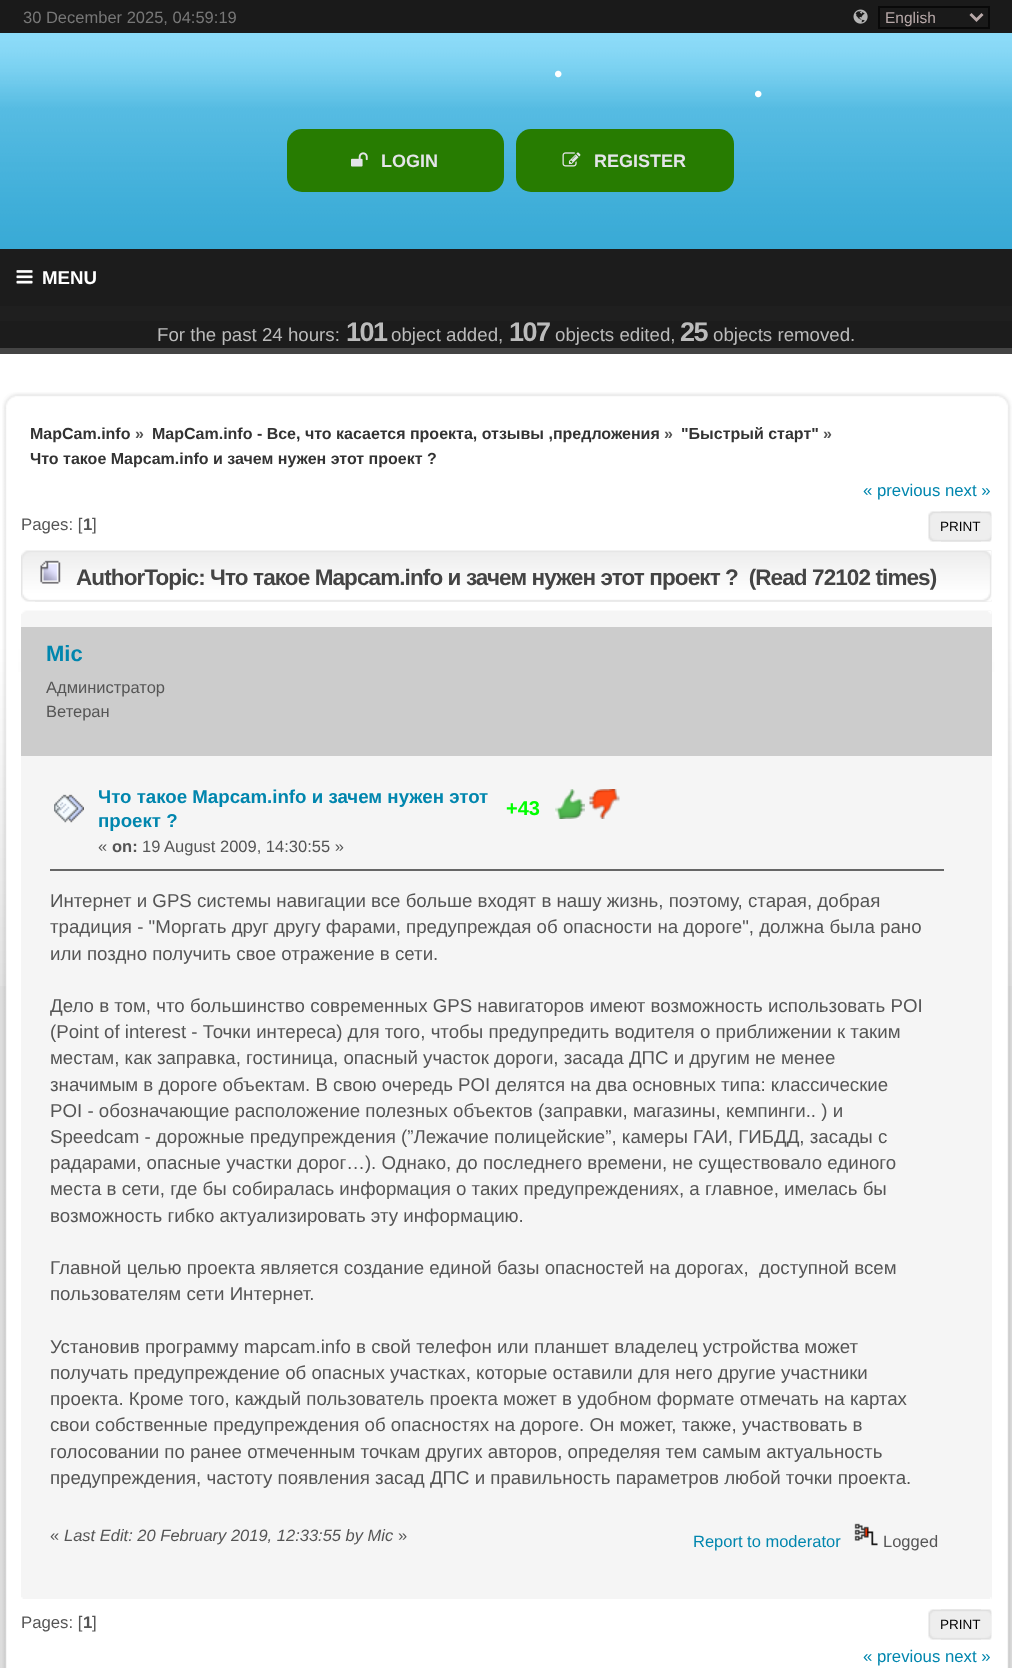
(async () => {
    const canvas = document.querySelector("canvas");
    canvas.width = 1012;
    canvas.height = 1668;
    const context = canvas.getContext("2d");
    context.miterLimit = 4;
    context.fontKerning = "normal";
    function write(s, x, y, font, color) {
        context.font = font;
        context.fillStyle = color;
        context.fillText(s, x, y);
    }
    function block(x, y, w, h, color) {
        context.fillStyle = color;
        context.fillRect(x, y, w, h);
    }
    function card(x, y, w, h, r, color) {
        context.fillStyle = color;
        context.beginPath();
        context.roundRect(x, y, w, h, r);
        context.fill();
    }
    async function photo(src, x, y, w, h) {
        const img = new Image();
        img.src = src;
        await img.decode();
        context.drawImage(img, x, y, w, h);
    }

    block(0, 0, 1012, 1668, "rgb(31, 31, 31)");
    block(0, 0, 1012, 33, "rgb(26, 26, 26)");
    write("30 December 2025, 04:59:19", 23, 23, "16.5px Liberation Sans", "rgb(119, 119, 119)");
    await photo("media/1.png", 853, 9, 15, 15);
    context.strokeStyle = "rgb(9, 9, 9)";
    context.lineWidth = 2;
    context.strokeRect(879, 7, 110, 21);
    context.beginPath();
    context.moveTo(970.5, 14);
    context.lineTo(976.5, 20);
    context.lineTo(982.5, 14);
    context.strokeStyle = "rgb(184, 169, 169)";
    context.lineWidth = 3;
    context.stroke();
    write("English", 885, 23, "15.5px Liberation Sans", "rgb(184, 169, 169)");
    await photo("media/2.png", 0, 33, 1012, 216);
    write("•", 554, 82, "24px Liberation Sans", "rgb(255, 255, 255)");
    write("•", 754, 102, "24px Liberation Sans", "rgb(255, 255, 255)");
    card(287, 129, 217, 63, 15, "rgb(39, 124, 1)");
    await photo("media/3.png", 351, 152, 17, 15);
    write("LOGIN", 381, 167, "bold 18px Liberation Sans", "rgb(228, 229, 232)");
    card(516, 129, 218, 63, 15, "rgb(39, 124, 1)");
    await photo("media/4.png", 562, 152, 19, 15);
    write("REGISTER", 594, 167, "bold 18px Liberation Sans", "rgb(228, 229, 232)");
    block(0, 249, 1012, 57, "rgb(28, 28, 28)");
    await photo("media/5.png", 16, 270, 17, 14);
    write("MENU", 42, 284, "bold 18.7px Liberation Sans", "rgb(255, 255, 255)");
    block(0, 321, 1012, 27, "rgb(28, 28, 28)");
    write("For the past 24 hours:", 157, 341, "18.7px Liberation Sans", "rgb(187, 187, 187)");
    context.letterSpacing = "-1.5px";
    write("101", 346, 341, "bold 27px Liberation Sans", "rgb(187, 187, 187)");
    context.letterSpacing = "0px";
    write("object added,", 391, 341, "18.7px Liberation Sans", "rgb(187, 187, 187)");
    context.letterSpacing = "-1.5px";
    write("107", 509, 341, "bold 27px Liberation Sans", "rgb(187, 187, 187)");
    context.letterSpacing = "0px";
    write("objects edited,", 555, 341, "18.7px Liberation Sans", "rgb(187, 187, 187)");
    context.letterSpacing = "-1.5px";
    write("25", 680, 341, "bold 27px Liberation Sans", "rgb(187, 187, 187)");
    context.letterSpacing = "0px";
    write("objects removed.", 713, 341, "18.7px Liberation Sans", "rgb(187, 187, 187)");
    block(0, 986, 1012, 682, "rgb(221, 221, 221)");
    await photo("media/6.png", 0, 354, 1012, 632);
    block(0, 348, 1012, 6, "rgb(68, 68, 68)");
    await photo("media/7.png", 2, 392, 16, 18);
    await photo("media/8.png", 994, 392, 18, 18);
    await photo("media/9.png", 18, 392, 977, 5);
    await photo("media/10.png", 2, 409, 16, 1259);
    await photo("media/11.png", 994, 409, 18, 1259);
    block(18, 672, 977, 996, "rgb(255, 255, 255)");
    write("MapCam.info", 30, 439, "bold 16px Liberation Sans", "rgb(51, 51, 51)");
    write("»", 135, 439, "bold 16px Liberation Sans", "rgb(85, 85, 85)");
    write("MapCam.info - Все, что касается проекта, отзывы ,предложения", 152, 439, "bold 16px Liberation Sans", "rgb(51, 51, 51)");
    write("»", 664, 439, "bold 16px Liberation Sans", "rgb(85, 85, 85)");
    write("\"Быстрый старт\"", 681, 439, "bold 16px Liberation Sans", "rgb(51, 51, 51)");
    write("»", 823, 439, "bold 16px Liberation Sans", "rgb(85, 85, 85)");
    write("Что такое Mapcam.info и зачем нужен этот проект ?", 30, 464, "bold 16px Liberation Sans", "rgb(51, 51, 51)");
    write("« previous next »", 863, 496, "16.75px Liberation Sans", "rgb(0, 134, 174)");
    write("Pages: [", 21, 530, "16.75px Liberation Sans", "rgb(85, 85, 85)");
    write("1", 83, 530, "bold 16.75px Liberation Sans", "rgb(85, 85, 85)");
    write("]", 92, 530, "16.75px Liberation Sans", "rgb(85, 85, 85)");
    await photo("media/12.png", 928, 511, 53, 31);
    await photo("media/13.png", 941, 511, 51, 31);
    write("PRINT", 940, 531, "13.5px Liberation Sans", "rgb(0, 0, 0)");
    await photo("media/14.png", 21, 550, 971, 52);
    await photo("media/15.png", 35, 551, 957, 51);
    await photo("media/16.png", 40, 560, 21, 24);
    context.letterSpacing = "-0.9px";
    write("AuthorTopic: Что такое Mapcam.info и зачем нужен этот проект ?  (Read 72102 times)", 76, 585, "bold 22.5px Liberation Sans", "rgb(68, 68, 68)");
    block(21, 611, 971, 988, "rgb(245, 245, 245)");
    await photo("media/17.png", 21, 610, 970, 4);
    await photo("media/18.png", 988, 611, 4, 3);
    block(21, 627, 971, 129, "rgb(204, 204, 204)");
    context.letterSpacing = "0px";
    write("Mic", 46, 661, "bold 22px Liberation Sans", "rgb(0, 134, 174)");
    write("Администратор", 46, 693, "16.5px Liberation Sans", "rgb(85, 85, 85)");
    write("Ветеран", 46, 717, "16.5px Liberation Sans", "rgb(85, 85, 85)");
    await photo("media/19.png", 54, 794, 30, 29);
    write("Что такое Mapcam.info и зачем нужен этот", 98, 803, "bold 18.7px Liberation Sans", "rgb(0, 134, 174)");
    write("проект ?", 98, 827, "bold 18.7px Liberation Sans", "rgb(0, 134, 174)");
    write("«", 98, 852, "16.5px Liberation Sans", "rgb(85, 85, 85)");
    write("on:", 112, 852, "bold 16.5px Liberation Sans", "rgb(85, 85, 85)");
    write("19 August 2009, 14:30:55 »", 142, 852, "16.5px Liberation Sans", "rgb(85, 85, 85)");
    write("+43", 506, 815, "bold 20px Liberation Sans", "rgb(0, 255, 0)");
    await photo("media/20.png", 555, 789, 30, 30);
    await photo("media/21.png", 589, 789, 31, 30);
    block(50, 869, 894, 2, "rgb(102, 102, 102)");
    write("Интернет и GPS системы навигации все больше входят в нашу жизнь, поэтому, старая, добрая", 50, 907, "18.7px Liberation Sans", "rgb(85, 85, 85)");
    write("традиция - \"Моргать друг другу фарами, предупреждая об опасности на дороге\", должна была рано", 50, 933, "18.7px Liberation Sans", "rgb(85, 85, 85)");
    write("или поздно получить свое отражение в сети.", 50, 960, "18.7px Liberation Sans", "rgb(85, 85, 85)");
    write("Дело в том, что большинство современных GPS навигаторов имеют возможность использовать POI", 50, 1012, "18.7px Liberation Sans", "rgb(85, 85, 85)");
    write("(Point of interest - Точки интереса) для того, чтобы предупредить водителя о приближении к таким", 50, 1038, "18.7px Liberation Sans", "rgb(85, 85, 85)");
    write("местам, как заправка, гостиница, опасный участок дороги, засада ДПС и другим не менее", 50, 1064, "18.7px Liberation Sans", "rgb(85, 85, 85)");
    write("значимым в дороге объектам. В свою очередь POI делятся на два основных типа: классические", 50, 1091, "18.7px Liberation Sans", "rgb(85, 85, 85)");
    write("POI - обозначающие расположение полезных объектов (заправки, магазины, кемпинги.. ) и", 50, 1117, "18.7px Liberation Sans", "rgb(85, 85, 85)");
    write("Speedcam - дорожные предупреждения (”Лежачие полицейские”, камеры ГАИ, ГИБДД, засады с", 50, 1143, "18.7px Liberation Sans", "rgb(85, 85, 85)");
    write("радарами, опасные участки дорог…). Однако, до последнего времени, не существовало единого", 50, 1169, "18.7px Liberation Sans", "rgb(85, 85, 85)");
    write("места в сети, где бы собиралась информация о таких предупреждениях, а главное, имелась бы", 50, 1195, "18.7px Liberation Sans", "rgb(85, 85, 85)");
    write("возможность гибко актуализировать эту информацию.", 50, 1222, "18.7px Liberation Sans", "rgb(85, 85, 85)");
    write("Главной целью проекта является создание единой базы опасностей на дорогах,  доступной всем", 50, 1274, "18.7px Liberation Sans", "rgb(85, 85, 85)");
    write("пользователям сети Интернет.", 50, 1300, "18.7px Liberation Sans", "rgb(85, 85, 85)");
    write("Установив программу mapcam.info в свой телефон или планшет владелец устройства может", 50, 1353, "18.7px Liberation Sans", "rgb(85, 85, 85)");
    write("получать предупреждение об опасных участках, которые оставили для него другие участники", 50, 1379, "18.7px Liberation Sans", "rgb(85, 85, 85)");
    write("проекта. Кроме того, каждый пользователь проекта может в удобном формате отмечать на картах", 50, 1405, "18.7px Liberation Sans", "rgb(85, 85, 85)");
    write("свои собственные предупреждения об опасностях на дороге. Он может, также, участвовать в", 50, 1431, "18.7px Liberation Sans", "rgb(85, 85, 85)");
    write("голосовании по ранее отмеченным точкам других авторов, определяя тем самым актуальность", 50, 1458, "18.7px Liberation Sans", "rgb(85, 85, 85)");
    write("предупреждения, частоту появления засад ДПС и правильность параметров любой точки проекта.", 50, 1484, "18.7px Liberation Sans", "rgb(85, 85, 85)");
    write("«", 50, 1541, "16.5px Liberation Sans", "rgb(85, 85, 85)");
    write("Last Edit: 20 February 2019, 12:33:55 by Mic", 64, 1541, "italic 16.5px Liberation Sans", "rgb(85, 85, 85)");
    write("»", 398, 1541, "16.5px Liberation Sans", "rgb(85, 85, 85)");
    write("Report to moderator", 693, 1547, "16.5px Liberation Sans", "rgb(0, 134, 174)");
    await photo("media/22.png", 854, 1523, 24, 23);
    write("Logged", 883, 1547, "16.5px Liberation Sans", "rgb(85, 85, 85)");
    await photo("media/23.png", 21, 1597, 2, 2);
    await photo("media/24.png", 990, 1597, 2, 2);
    write("Pages: [", 21, 1628, "16.75px Liberation Sans", "rgb(85, 85, 85)");
    write("1", 83, 1628, "bold 16.75px Liberation Sans", "rgb(85, 85, 85)");
    write("]", 92, 1628, "16.75px Liberation Sans", "rgb(85, 85, 85)");
    await photo("media/12.png", 928, 1609, 53, 31);
    await photo("media/13.png", 941, 1609, 51, 31);
    write("PRINT", 940, 1629, "13.5px Liberation Sans", "rgb(0, 0, 0)");
    write("« previous next »", 863, 1662, "16.75px Liberation Sans", "rgb(0, 134, 174)");
})();
